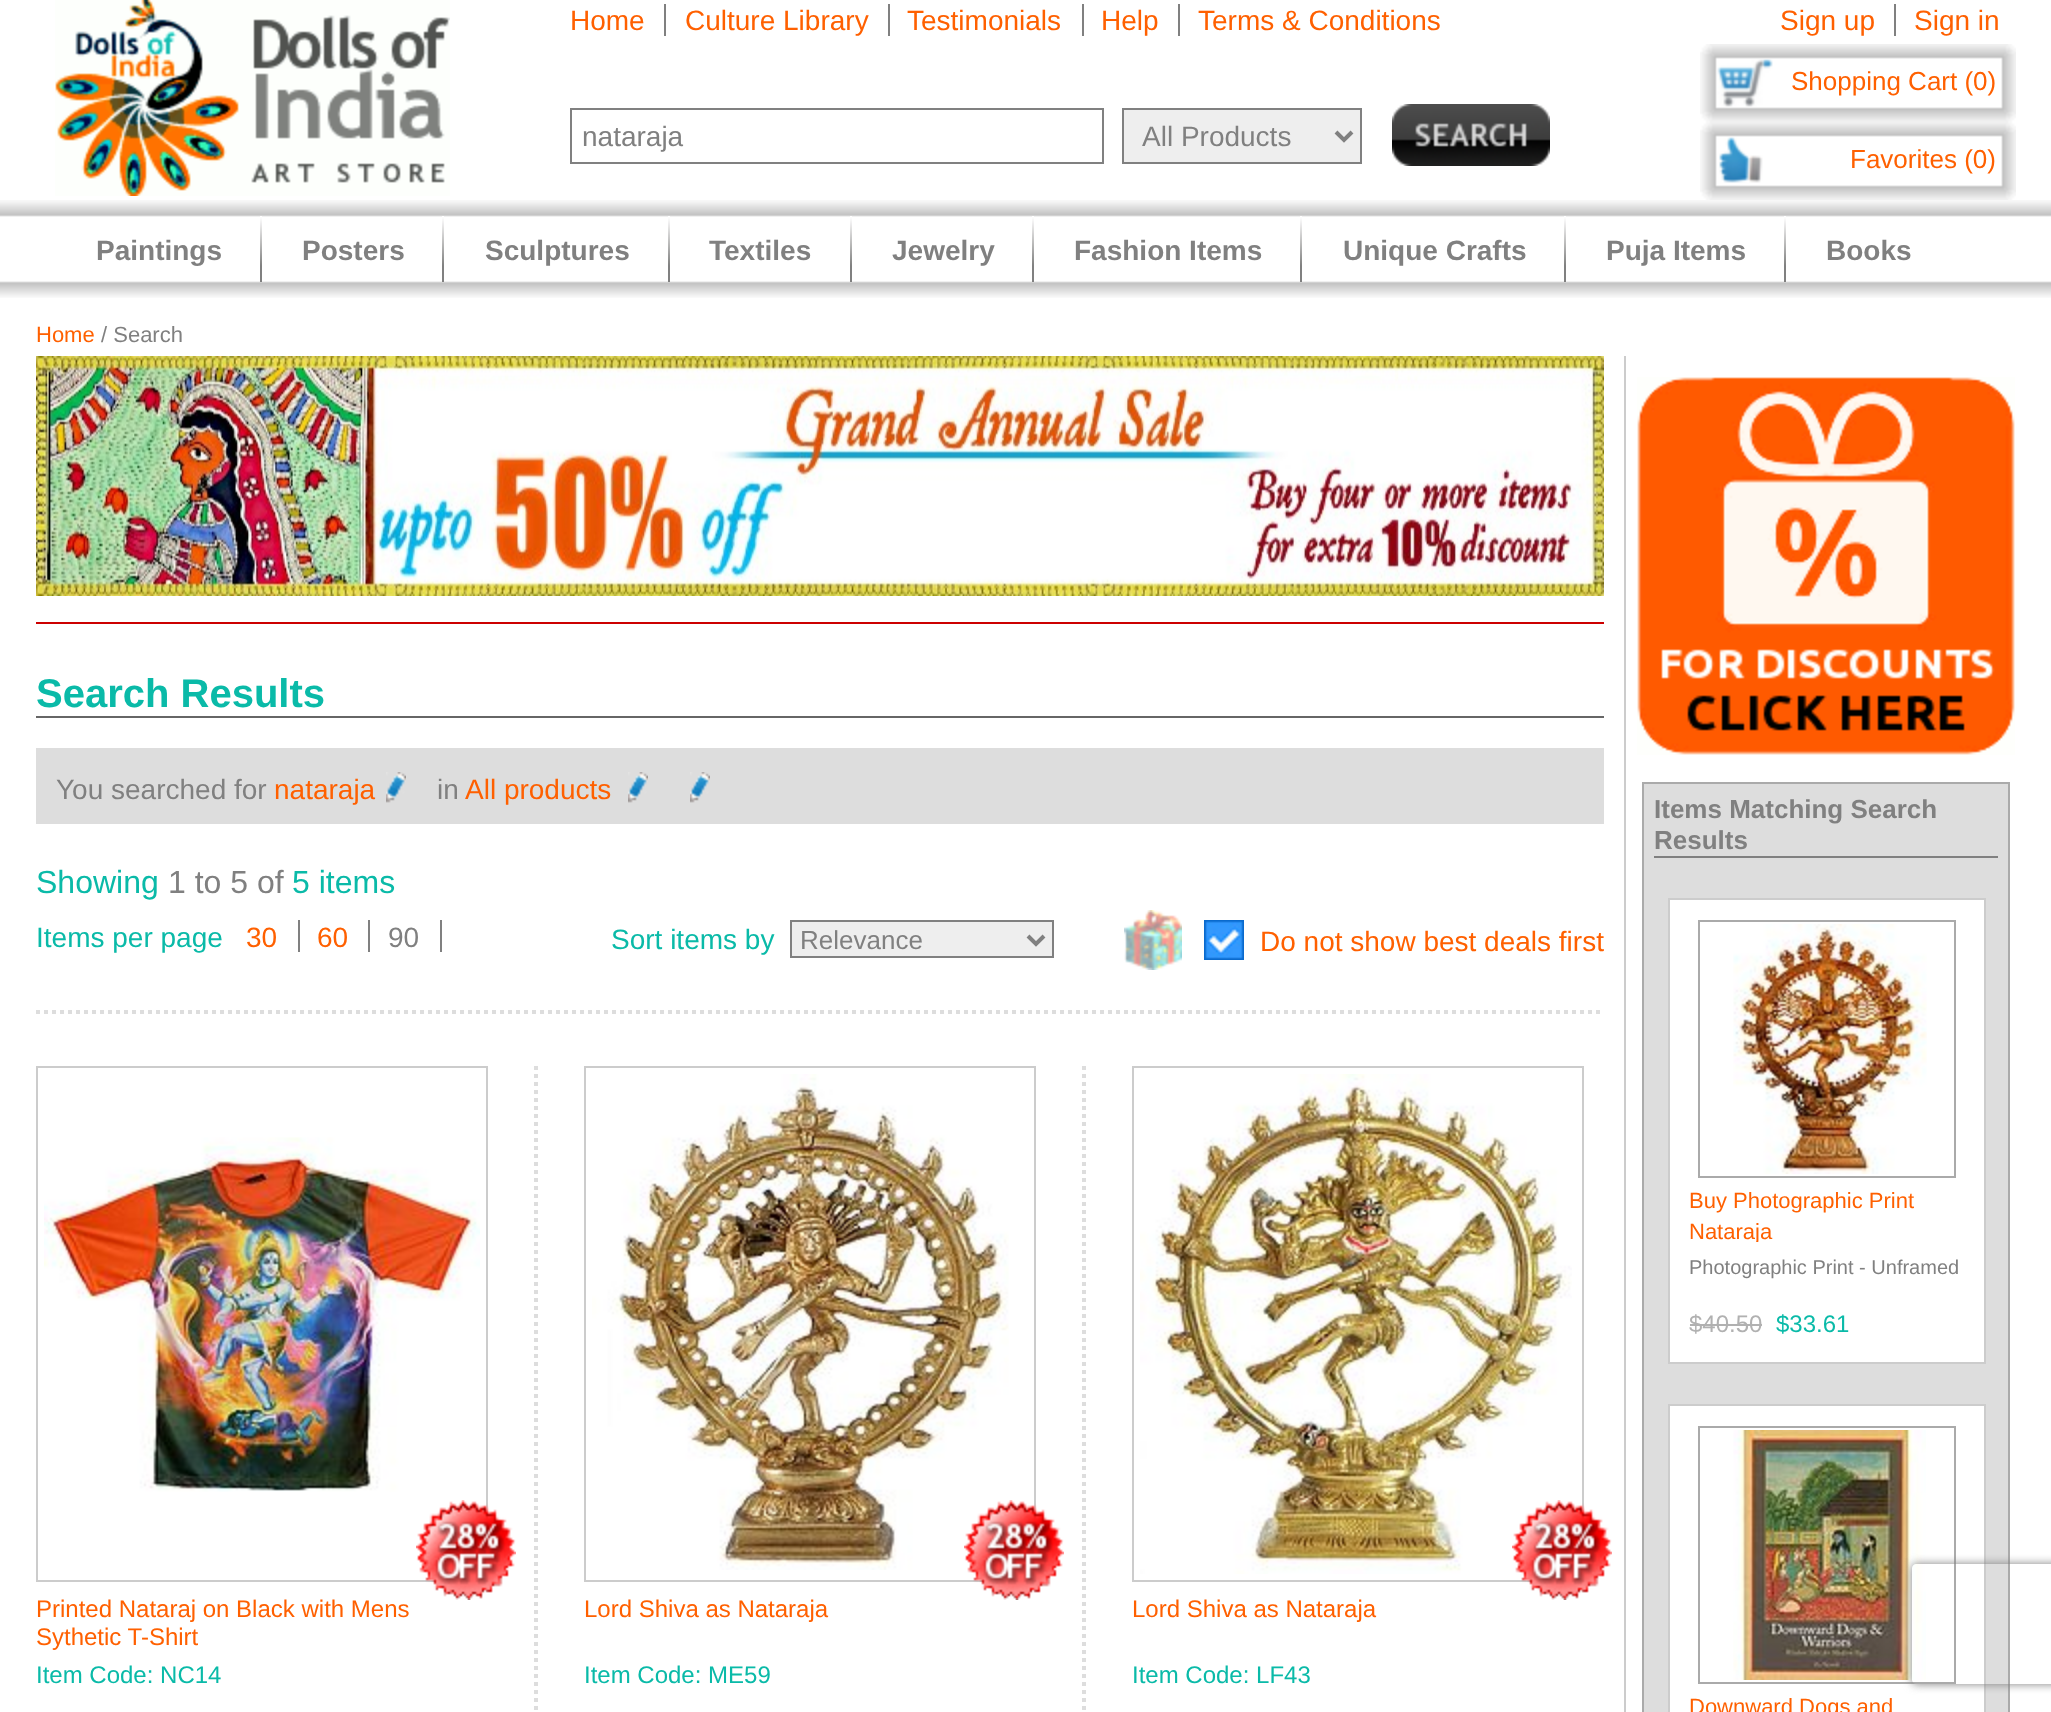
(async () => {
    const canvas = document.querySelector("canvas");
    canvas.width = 2051;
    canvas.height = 1712;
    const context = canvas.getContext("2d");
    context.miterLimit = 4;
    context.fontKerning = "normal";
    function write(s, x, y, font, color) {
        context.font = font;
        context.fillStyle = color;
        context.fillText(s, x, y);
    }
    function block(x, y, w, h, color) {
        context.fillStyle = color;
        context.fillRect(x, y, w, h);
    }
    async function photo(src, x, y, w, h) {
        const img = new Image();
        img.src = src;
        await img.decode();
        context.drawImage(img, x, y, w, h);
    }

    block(0, 0, 2051, 1712, "rgb(255, 255, 255)");
    await photo("media/1.png", 55, 0, 395, 196);
    write("Home", 570, 30, "28px Liberation Sans", "rgb(255, 96, 0)");
    block(664, 4, 2, 32, "rgb(128, 128, 128)");
    write("Culture Library", 685, 30, "28px Liberation Sans", "rgb(255, 96, 0)");
    block(888, 4, 2, 32, "rgb(128, 128, 128)");
    write("Testimonials", 907, 30, "28px Liberation Sans", "rgb(255, 96, 0)");
    block(1082, 4, 2, 32, "rgb(128, 128, 128)");
    write("Help", 1101, 30, "28px Liberation Sans", "rgb(255, 96, 0)");
    block(1178, 4, 2, 32, "rgb(128, 128, 128)");
    write("Terms & Conditions", 1198, 30, "28px Liberation Sans", "rgb(255, 96, 0)");
    context.strokeStyle = "rgb(128, 128, 128)";
    context.lineWidth = 2;
    context.strokeRect(571, 109, 532, 54);
    write("nataraja", 582, 146, "28px Liberation Sans", "rgb(128, 128, 128)");
    context.fillStyle = "rgb(238, 238, 238)";
    context.beginPath();
    context.rect(1123, 109, 238, 54);
    context.fill();
    context.stroke();
    context.beginPath();
    context.moveTo(1336, 132);
    context.lineTo(1344, 140);
    context.lineTo(1352, 132);
    context.lineWidth = 4;
    context.stroke();
    write("All Products", 1142, 146, "28px Liberation Sans", "rgb(128, 128, 128)");
    await photo("media/2.png", 1392, 104, 158, 62);
    write("Sign up", 1780, 30, "28px Liberation Sans", "rgb(255, 96, 0)");
    block(1894, 4, 2, 32, "rgb(128, 128, 128)");
    write("Sign in", 1914, 30, "28px Liberation Sans", "rgb(255, 96, 0)");
    await photo("media/3.png", 1700, 44, 316, 78);
    write("Shopping Cart (0)", 1791, 90, "26px Liberation Sans", "rgb(255, 96, 0)");
    await photo("media/4.png", 1700, 122, 316, 78);
    write("Favorites (0)", 1850, 168, "26px Liberation Sans", "rgb(255, 96, 0)");
    await photo("media/5.png", 0, 200, 2051, 98);
    await photo("media/6.png", 260, 216, 2, 66);
    write("Paintings", 96, 260, "bold 28px Liberation Sans", "rgb(128, 128, 128)");
    await photo("media/6.png", 442, 216, 2, 66);
    write("Posters", 302, 260, "bold 28px Liberation Sans", "rgb(128, 128, 128)");
    await photo("media/6.png", 668, 216, 2, 66);
    write("Sculptures", 485, 260, "bold 28px Liberation Sans", "rgb(128, 128, 128)");
    await photo("media/6.png", 850, 216, 2, 66);
    write("Textiles", 709, 260, "bold 28px Liberation Sans", "rgb(128, 128, 128)");
    await photo("media/6.png", 1032, 216, 2, 66);
    write("Jewelry", 892, 260, "bold 28px Liberation Sans", "rgb(128, 128, 128)");
    await photo("media/6.png", 1300, 216, 2, 66);
    write("Fashion Items", 1074, 260, "bold 28px Liberation Sans", "rgb(128, 128, 128)");
    await photo("media/6.png", 1564, 216, 2, 66);
    write("Unique Crafts", 1343, 260, "bold 28px Liberation Sans", "rgb(128, 128, 128)");
    await photo("media/6.png", 1784, 216, 2, 66);
    write("Puja Items", 1606, 260, "bold 28px Liberation Sans", "rgb(128, 128, 128)");
    write("Books", 1826, 260, "bold 28px Liberation Sans", "rgb(128, 128, 128)");
    write("Home", 36, 342, "22px Liberation Sans", "rgb(255, 96, 0)");
    write("/ Search", 101, 342, "22px Liberation Sans", "rgb(128, 128, 128)");
    block(1624, 356, 2, 1356, "rgb(204, 204, 204)");
    await photo("media/7.png", 36, 356, 1568, 240);
    block(36, 622, 1568, 2, "rgb(204, 0, 0)");
    block(36, 716, 1568, 2, "rgb(102, 102, 102)");
    write("Search Results", 36, 707, "bold 40px Liberation Sans", "rgb(10, 186, 168)");
    block(36, 748, 1568, 76, "rgb(221, 221, 221)");
    write("You searched for", 56, 799, "28px Liberation Sans", "rgb(128, 128, 128)");
    write("nataraja", 274, 799, "28px Liberation Sans", "rgb(255, 96, 0)");
    await photo("media/8.png", 386, 772, 20, 31);
    write("in", 437, 799, "28px Liberation Sans", "rgb(128, 128, 128)");
    write("All products", 465, 799, "28px Liberation Sans", "rgb(255, 96, 0)");
    await photo("media/8.png", 628, 772, 20, 31);
    await photo("media/8.png", 690, 772, 20, 31);
    write("Showing", 36, 893, "32px Liberation Sans", "rgb(10, 186, 168)");
    write("1 to 5 of", 168, 893, "32px Liberation Sans", "rgb(128, 128, 128)");
    write("5 items", 292, 893, "32px Liberation Sans", "rgb(10, 186, 168)");
    write("Items per page", 36, 947, "28px Liberation Sans", "rgb(10, 186, 168)");
    write("30", 246, 947, "28px Liberation Sans", "rgb(255, 96, 0)");
    block(298, 920, 2, 32, "rgb(128, 128, 128)");
    write("60", 317, 947, "28px Liberation Sans", "rgb(255, 96, 0)");
    block(368, 920, 2, 32, "rgb(128, 128, 128)");
    write("90", 388, 947, "28px Liberation Sans", "rgb(128, 128, 128)");
    block(440, 920, 2, 32, "rgb(128, 128, 128)");
    write("Sort items by", 611, 949, "28px Liberation Sans", "rgb(10, 186, 168)");
    context.fillStyle = "rgb(238, 238, 238)";
    context.beginPath();
    context.rect(791, 921, 262, 36);
    context.fill();
    context.lineWidth = 2;
    context.stroke();
    context.beginPath();
    context.moveTo(1028, 936);
    context.lineTo(1036, 944);
    context.lineTo(1044, 936);
    context.lineWidth = 4;
    context.stroke();
    write("Relevance", 800, 949, "26px Liberation Sans", "rgb(128, 128, 128)");
    await photo("media/9.png", 1124, 910, 58, 60);
    await photo("media/10.png", 1204, 920, 40, 40);
    write("Do not show best deals first", 1260, 951, "28px Liberation Sans", "rgb(255, 96, 0)");
    context.beginPath();
    context.moveTo(36, 1012);
    context.lineTo(1604, 1012);
    context.strokeStyle = "rgb(221, 221, 221)";
    context.setLineDash([4, 4]);
    context.stroke();
    context.beginPath();
    context.moveTo(536, 1066);
    context.lineTo(536, 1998);
    context.stroke();
    context.strokeStyle = "rgb(204, 204, 204)";
    context.lineWidth = 2;
    context.setLineDash([]);
    context.strokeRect(37, 1067, 450, 514);
    await photo("media/11.png", 44, 1137, 436, 355);
    await photo("media/12.png", 416, 1500, 100, 100);
    write("Printed Nataraj on Black with Mens", 36, 1617, "24px Liberation Sans", "rgb(255, 96, 0)");
    write("Sythetic T-Shirt", 36, 1645, "24px Liberation Sans", "rgb(255, 96, 0)");
    write("Item Code: NC14", 36, 1683, "24px Liberation Sans", "rgb(10, 186, 168)");
    context.beginPath();
    context.moveTo(1084, 1066);
    context.lineTo(1084, 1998);
    context.strokeStyle = "rgb(221, 221, 221)";
    context.lineWidth = 4;
    context.setLineDash([4, 4]);
    context.stroke();
    context.strokeStyle = "rgb(204, 204, 204)";
    context.lineWidth = 2;
    context.setLineDash([]);
    context.strokeRect(585, 1067, 450, 514);
    await photo("media/13.png", 592, 1074, 417, 496);
    await photo("media/12.png", 964, 1500, 100, 100);
    write("Lord Shiva as Nataraja", 584, 1617, "24px Liberation Sans", "rgb(255, 96, 0)");
    write("Item Code: ME59", 584, 1683, "24px Liberation Sans", "rgb(10, 186, 168)");
    context.strokeRect(1133, 1067, 450, 514);
    await photo("media/14.png", 1140, 1074, 432, 500);
    await photo("media/12.png", 1512, 1500, 100, 100);
    write("Lord Shiva as Nataraja", 1132, 1617, "24px Liberation Sans", "rgb(255, 96, 0)");
    write("Item Code: LF43", 1132, 1683, "24px Liberation Sans", "rgb(10, 186, 168)");
    await photo("media/15.png", 1637, 377, 378, 378);
    context.fillStyle = "rgb(221, 221, 221)";
    context.beginPath();
    context.rect(1643, 783, 366, 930);
    context.fill();
    context.strokeStyle = "rgb(170, 170, 170)";
    context.stroke();
    block(1654, 856, 344, 2, "rgb(128, 128, 128)");
    write("Items Matching Search", 1654, 818, "bold 26px Liberation Sans", "rgb(128, 128, 128)");
    write("Results", 1654, 849, "bold 26px Liberation Sans", "rgb(128, 128, 128)");
    context.fillStyle = "rgb(255, 255, 255)";
    context.beginPath();
    context.rect(1669, 899, 316, 464);
    context.fill();
    context.strokeStyle = "rgb(204, 204, 204)";
    context.stroke();
    context.strokeStyle = "rgb(170, 170, 170)";
    context.strokeRect(1699, 921, 256, 256);
    await photo("media/16.png", 1733, 924, 194, 250);
    write("Buy Photographic Print", 1689, 1208, "22px Liberation Sans", "rgb(255, 96, 0)");
    context.save();
    context.beginPath();
    context.rect(1690, 1186, 274, 56);
    context.clip();
    write("Nataraja", 1689, 1239, "22px Liberation Sans", "rgb(255, 96, 0)");
    context.restore();
    write("Photographic Print - Unframed", 1689, 1274, "20px Liberation Sans", "rgb(128, 128, 128)");
    write("$40.50", 1689, 1332, "24px Liberation Sans", "rgb(177, 177, 177)");
    block(1690, 1324, 72, 2, "rgb(177, 177, 177)");
    write("$33.61", 1776, 1332, "24px Liberation Sans", "rgb(10, 186, 168)");
    context.fillStyle = "rgb(255, 255, 255)";
    context.beginPath();
    context.rect(1669, 1405, 316, 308);
    context.fill();
    context.strokeStyle = "rgb(204, 204, 204)";
    context.stroke();
    context.strokeStyle = "rgb(170, 170, 170)";
    context.strokeRect(1699, 1427, 256, 256);
    await photo("media/17.png", 1733, 1430, 193, 250);
    write("Downward Dogs and", 1689, 1714, "22px Liberation Sans", "rgb(255, 96, 0)");
    context.save();
    context.beginPath();
    context.moveTo(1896, 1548);
    context.lineTo(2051, 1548);
    context.lineTo(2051, 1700);
    context.lineTo(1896, 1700);
    context.closePath();
    context.moveTo(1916, 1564);
    context.lineTo(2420, 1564);
    context.bezierCurveTo(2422, 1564, 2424, 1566, 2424, 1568);
    context.lineTo(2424, 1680);
    context.bezierCurveTo(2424, 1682, 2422, 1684, 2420, 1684);
    context.lineTo(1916, 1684);
    context.bezierCurveTo(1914, 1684, 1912, 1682, 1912, 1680);
    context.lineTo(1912, 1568);
    context.bezierCurveTo(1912, 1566, 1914, 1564, 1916, 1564);
    context.closePath();
    context.clip("evenodd");
    context.fillStyle = "rgb(128, 128, 128)";
    context.filter = "blur(5px)";
    context.beginPath();
    context.roundRect(1912, 1564, 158, 120, 4);
    context.fill();
    context.filter = "none";
    context.restore();
})();
